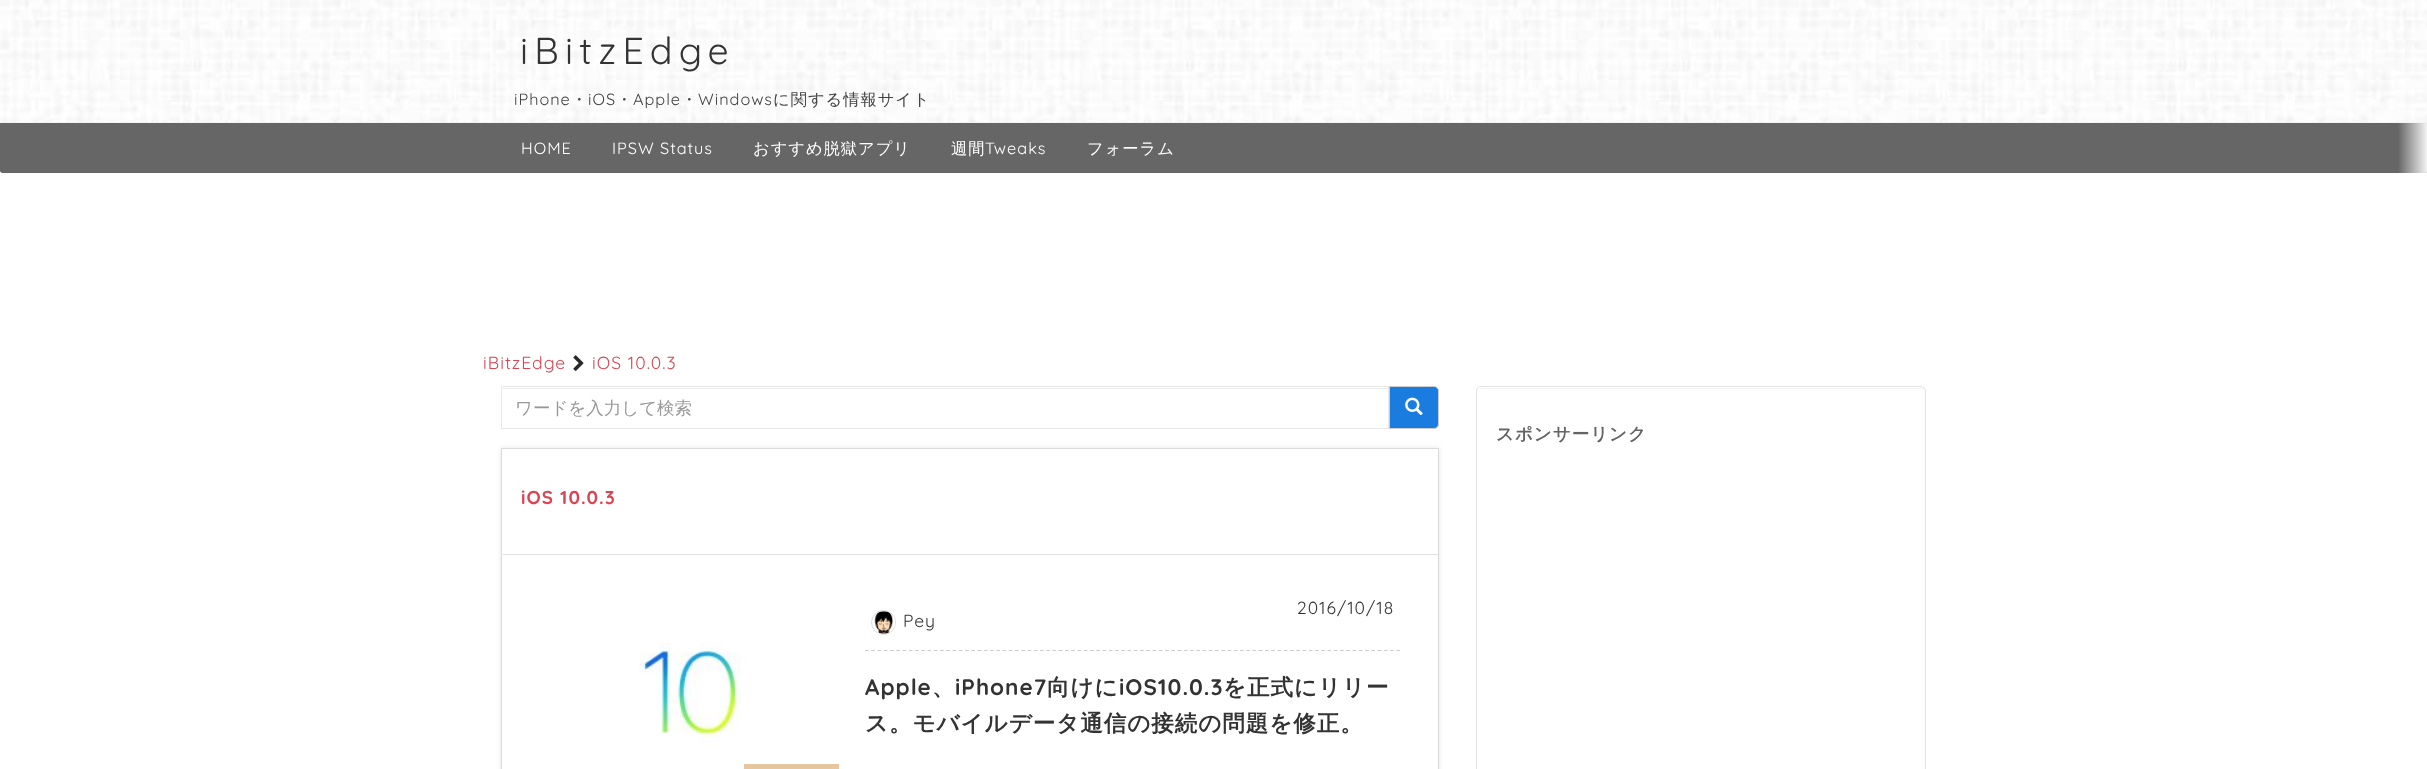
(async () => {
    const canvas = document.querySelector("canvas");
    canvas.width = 2427;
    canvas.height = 769;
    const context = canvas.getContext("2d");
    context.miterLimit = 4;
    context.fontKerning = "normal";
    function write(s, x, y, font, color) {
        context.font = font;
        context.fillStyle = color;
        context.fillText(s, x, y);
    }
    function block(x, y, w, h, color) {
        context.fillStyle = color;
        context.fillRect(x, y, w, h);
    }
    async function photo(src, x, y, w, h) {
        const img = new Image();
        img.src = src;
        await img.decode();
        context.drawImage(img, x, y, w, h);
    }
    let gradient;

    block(0, 0, 2427, 769, "rgb(255, 255, 255)");
    context.fillStyle = "rgba(0, 0, 0, 0.1)";
    context.filter = "blur(2.5px)";
    context.beginPath();
    context.rect(-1, -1, 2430, 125);
    context.fill();
    context.filter = "none";
    await photo("media/1.png", 0, 0, 2427, 123);
    context.letterSpacing = "6.25px";
    write("iBitzEdge", 520, 64, "37.5px Quicksand", "rgb(51, 51, 51)");
    context.letterSpacing = "1px";
    write("iPhone", 514, 105, "16.25px Quicksand", "rgb(66, 66, 66)");
    write("・", 571, 105, "500 16.25px WenQuanYi Zen Hei", "rgb(66, 66, 66)");
    write("iOS", 588, 105, "16.25px Quicksand", "rgb(66, 66, 66)");
    write("・", 616, 105, "500 16.25px WenQuanYi Zen Hei", "rgb(66, 66, 66)");
    write("Apple", 633, 105, "16.25px Quicksand", "rgb(66, 66, 66)");
    write("・", 681, 105, "500 16.25px WenQuanYi Zen Hei", "rgb(66, 66, 66)");
    write("Windows", 698, 105, "16.25px Quicksand", "rgb(66, 66, 66)");
    write("に関する情報サイト", 773, 105, "500 16.25px WenQuanYi Zen Hei", "rgb(66, 66, 66)");
    context.fillStyle = "rgb(102, 102, 102)";
    context.beginPath();
    context.moveTo(0, 123);
    context.lineTo(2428, 123);
    context.lineTo(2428, 170.5);
    context.bezierCurveTo(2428, 172, 2427, 173, 2425.5, 173);
    context.lineTo(2.5, 173);
    context.bezierCurveTo(1, 173, 0, 172, 0, 170.5);
    context.closePath();
    context.fill();
    write("HOME", 521, 154, "16.25px Quicksand", "rgb(255, 255, 255)");
    write("IPSW Status", 612, 154, "16.25px Quicksand", "rgb(255, 255, 255)");
    write("おすすめ脱獄アプリ", 753, 154, "500 16.25px WenQuanYi Zen Hei", "rgb(255, 255, 255)");
    write("週間", 951, 154, "500 16.25px WenQuanYi Zen Hei", "rgb(255, 255, 255)");
    write("Tweaks", 985, 154, "16.25px Quicksand", "rgb(255, 255, 255)");
    write("フォーラム", 1087, 154, "500 16.25px WenQuanYi Zen Hei", "rgb(255, 255, 255)");
    gradient = context.createLinearGradient(2398, 123, 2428, 123);
    gradient.addColorStop(0, "rgba(248, 248, 248, 0)");
    gradient.addColorStop(1, "rgb(248, 248, 248)");
    context.fillStyle = gradient;
    context.beginPath();
    context.moveTo(2398, 123);
    context.lineTo(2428, 123);
    context.lineTo(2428, 170.5);
    context.bezierCurveTo(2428, 172, 2427, 173, 2425.5, 173);
    context.lineTo(2398, 173);
    context.closePath();
    context.fill();
    write("iBitzEdge", 483, 369, "17.5px Quicksand", "rgb(218, 68, 83)");
    await photo("media/2.png", 573, 355, 11, 16);
    write("iOS 10.0.3", 592, 369, "17.5px Quicksand", "rgb(218, 68, 83)");
    block(503, 388, 885, 1, "rgb(236, 236, 236)");
    context.strokeStyle = "rgb(232, 232, 232)";
    context.strokeRect(501.5, 386.5, 887, 42);
    context.letterSpacing = "0px";
    write("ワードを入力して検索", 515, 414, "500 17.5px WenQuanYi Zen Hei", "rgb(153, 153, 153)");
    context.fillStyle = "rgb(26, 124, 223)";
    context.beginPath();
    context.roundRect(1389.5, 386.5, 49, 42, [0, 4.5, 4.5, 0]);
    context.fill();
    context.strokeStyle = "rgb(204, 204, 204)";
    context.stroke();
    await photo("media/3.png", 1405, 397, 18, 19);
    context.save();
    context.beginPath();
    context.moveTo(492, 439);
    context.lineTo(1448, 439);
    context.lineTo(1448, 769);
    context.lineTo(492, 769);
    context.closePath();
    context.moveTo(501, 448);
    context.lineTo(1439, 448);
    context.lineTo(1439, 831);
    context.lineTo(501, 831);
    context.closePath();
    context.clip("evenodd");
    context.fillStyle = "rgba(0, 0, 0, 0.1)";
    context.filter = "blur(2.5px)";
    context.beginPath();
    context.rect(501, 448, 938, 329);
    context.fill();
    context.filter = "none";
    context.restore();
    context.strokeStyle = "rgb(218, 218, 218)";
    context.strokeRect(501.5, 448.5, 937, 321);
    context.letterSpacing = "1px";
    write("iOS 10.0.3", 521, 504, "bold 18.75px Quicksand", "rgb(218, 68, 83)");
    block(503, 554, 935, 1, "rgb(225, 225, 225)");
    await photo("media/4.png", 639, 642, 102, 106);
    context.fillStyle = "rgb(229, 198, 159)";
    context.beginPath();
    context.rect(743.5, 763.5, 96, 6);
    context.fill();
    context.strokeStyle = "rgb(255, 255, 255)";
    context.stroke();
    write("2016/10/18", 1297, 614, "17.5px Quicksand", "rgb(51, 51, 51)");
    context.beginPath();
    context.arc(883.5, 622.5, 12, 0, Math.PI * 2);
    context.strokeStyle = "rgb(221, 221, 221)";
    context.stroke();
    await photo("media/5.png", 874, 611, 21, 23);
    write("Pey", 903, 627, "17.5px Quicksand", "rgb(51, 51, 51)");
    context.beginPath();
    context.moveTo(865, 650.5);
    context.lineTo(1400, 650.5);
    context.strokeStyle = "rgb(204, 204, 204)";
    context.lineWidth = 1.2;
    context.setLineDash([3.75, 2.5]);
    context.stroke();
    write("Apple", 865, 695, "bold 22.5px Quicksand", "rgb(51, 51, 51)");
    write("、", 932, 695, "bold 22.5px WenQuanYi Zen Hei", "rgb(51, 51, 51)");
    write("iPhone7", 955, 695, "bold 22.5px Quicksand", "rgb(51, 51, 51)");
    write("向けに", 1047, 695, "bold 22.5px WenQuanYi Zen Hei", "rgb(51, 51, 51)");
    write("iOS10.0.3", 1119, 695, "bold 22.5px Quicksand", "rgb(51, 51, 51)");
    write("を正式にリリー", 1223, 695, "bold 22.5px WenQuanYi Zen Hei", "rgb(51, 51, 51)");
    write("ス。モバイルデータ通信の接続の問題を修正。", 865, 731, "bold 22.5px WenQuanYi Zen Hei", "rgb(51, 51, 51)");
    context.fillStyle = "rgb(242, 242, 242)";
    context.beginPath();
    context.moveTo(1481, 389);
    context.lineTo(1921, 389);
    context.bezierCurveTo(1923, 389, 1925, 390, 1925, 392);
    context.bezierCurveTo(1925, 390, 1923, 388, 1921, 388);
    context.lineTo(1482, 388);
    context.bezierCurveTo(1481, 388, 1479, 389, 1479, 390);
    context.closePath();
    context.fill();
    context.beginPath();
    context.roundRect(1476.5, 386.5, 449, 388, 4.5);
    context.strokeStyle = "rgb(227, 227, 227)";
    context.lineWidth = 1;
    context.setLineDash([]);
    context.stroke();
    write("スポンサーリンク", 1496, 440, "bold 17.5px WenQuanYi Zen Hei", "rgb(99, 100, 103)");
})();
